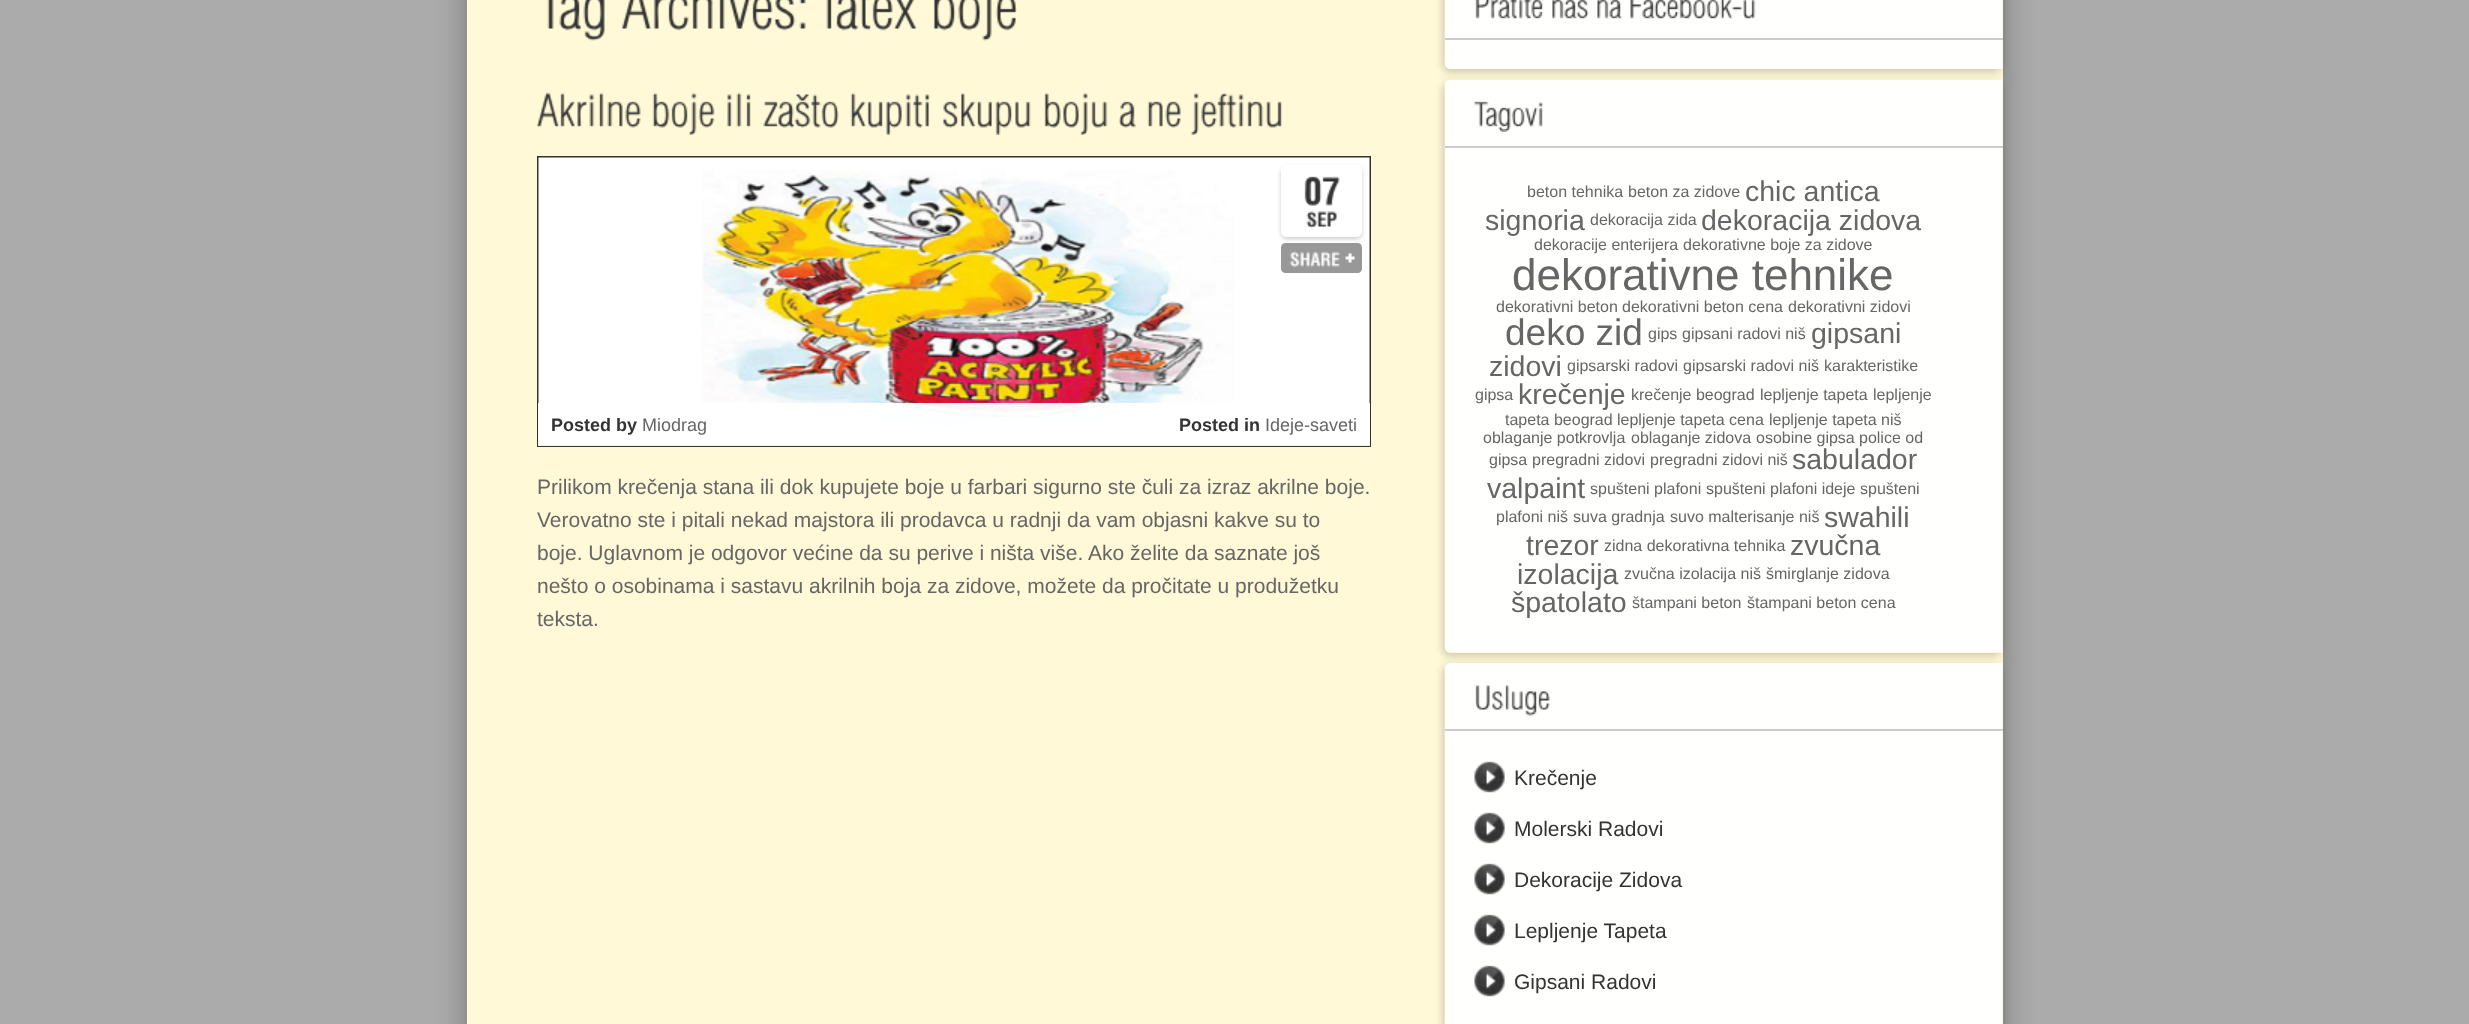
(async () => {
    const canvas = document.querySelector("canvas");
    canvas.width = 2469;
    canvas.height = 1024;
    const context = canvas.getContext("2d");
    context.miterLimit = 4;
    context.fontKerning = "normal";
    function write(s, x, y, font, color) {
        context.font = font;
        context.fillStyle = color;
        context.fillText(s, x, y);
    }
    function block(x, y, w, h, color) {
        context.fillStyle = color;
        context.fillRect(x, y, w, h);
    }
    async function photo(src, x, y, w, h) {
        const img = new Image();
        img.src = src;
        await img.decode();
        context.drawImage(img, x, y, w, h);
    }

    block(0, 0, 2469, 1024, "rgb(171, 171, 171)");
    context.fillStyle = "rgba(0, 0, 0, 0.3)";
    context.filter = "blur(15px)";
    context.beginPath();
    context.rect(467, -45, 1536, 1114);
    context.fill();
    context.filter = "none";
    block(467, 0, 1536, 1024, "rgb(255, 249, 215)");
    await photo("media/1.png", 547, 0, 58, 41);
    await photo("media/2.png", 622, 0, 184, 31);
    await photo("media/3.png", 826, 0, 91, 31);
    await photo("media/4.png", 933, 0, 84, 41);
    await photo("media/5.png", 536, 92, 105, 36);
    await photo("media/6.png", 652, 92, 63, 43);
    await photo("media/7.png", 727, 92, 24, 36);
    await photo("media/8.png", 763, 94, 76, 34);
    await photo("media/9.png", 850, 92, 80, 43);
    await photo("media/10.png", 943, 92, 88, 43);
    await photo("media/11.png", 1044, 92, 64, 43);
    await photo("media/12.png", 1118, 101, 18, 27);
    await photo("media/13.png", 1147, 101, 34, 27);
    await photo("media/14.png", 1190, 92, 92, 43);
    context.strokeStyle = "rgb(51, 51, 51)";
    context.lineWidth = 2;
    context.strokeRect(538, 157, 832, 289);
    await photo("media/15.png", 538, 157, 832, 286);
    context.save();
    context.beginPath();
    context.moveTo(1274, 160);
    context.lineTo(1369, 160);
    context.lineTo(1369, 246);
    context.lineTo(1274, 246);
    context.closePath();
    context.moveTo(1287, 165);
    context.lineTo(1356, 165);
    context.bezierCurveTo(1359.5, 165, 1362, 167.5, 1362, 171);
    context.lineTo(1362, 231);
    context.bezierCurveTo(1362, 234.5, 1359.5, 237, 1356, 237);
    context.lineTo(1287, 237);
    context.bezierCurveTo(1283.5, 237, 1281, 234.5, 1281, 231);
    context.lineTo(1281, 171);
    context.bezierCurveTo(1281, 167.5, 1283.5, 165, 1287, 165);
    context.closePath();
    context.clip("evenodd");
    context.fillStyle = "rgba(0, 0, 0, 0.2)";
    context.filter = "blur(2px)";
    context.beginPath();
    context.roundRect(1281, 167, 81, 72, 6);
    context.fill();
    context.filter = "none";
    context.restore();
    await photo("media/16.png", 1281, 232, 81, 5);
    await photo("media/17.png", 1304, 176, 36, 30);
    await photo("media/18.png", 1306, 211, 31, 18);
    await photo("media/19.png", 1281, 243, 81, 30);
    await photo("media/20.png", 1345, 253, 10, 10);
    await photo("media/21.png", 1289, 251, 51, 17);
    block(538, 403, 832, 43, "rgba(255, 255, 255, 0.95)");
    write("Posted by", 551, 431, "bold 18px Liberation Sans", "rgb(51, 51, 51)");
    write("Miodrag", 642, 431, "18px Liberation Sans", "rgb(102, 102, 102)");
    write("Posted in", 1179, 431, "bold 18px Liberation Sans", "rgb(51, 51, 51)");
    write("Ideje-saveti", 1265, 431, "18px Liberation Sans", "rgb(102, 102, 102)");
    write("Prilikom krečenja stana ili dok kupujete boje u farbari sigurno ste čuli za izraz akrilne boje.", 537, 494, "21px Liberation Sans", "rgb(102, 102, 102)");
    write("Verovatno ste i pitali nekad majstora ili prodavca u radnji da vam objasni kakve su to", 537, 527, "21px Liberation Sans", "rgb(102, 102, 102)");
    write("boje. Uglavnom je odgovor većine da su perive i ništa više. Ako želite da saznate još", 537, 560, "21px Liberation Sans", "rgb(102, 102, 102)");
    write("nešto o osobinama i sastavu akrilnih boja za zidove, možete da pročitate u produžetku", 537, 593, "21px Liberation Sans", "rgb(102, 102, 102)");
    write("teksta.", 537, 626, "21px Liberation Sans", "rgb(102, 102, 102)");
    context.save();
    context.beginPath();
    context.moveTo(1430, 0);
    context.lineTo(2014, 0);
    context.lineTo(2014, 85);
    context.lineTo(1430, 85);
    context.closePath();
    context.moveTo(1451, -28);
    context.lineTo(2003, -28);
    context.lineTo(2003, 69);
    context.lineTo(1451, 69);
    context.bezierCurveTo(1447.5, 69, 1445, 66.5, 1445, 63);
    context.lineTo(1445, -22);
    context.bezierCurveTo(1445, -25.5, 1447.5, -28, 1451, -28);
    context.closePath();
    context.clip("evenodd");
    context.fillStyle = "rgba(0, 0, 0, 0.2)";
    context.filter = "blur(4px)";
    context.beginPath();
    context.roundRect(1443, -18, 558, 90, 6);
    context.fill();
    context.filter = "none";
    context.restore();
    await photo("media/22.png", 1444, 0, 559, 69);
    await photo("media/23.png", 1475, 0, 68, 19);
    await photo("media/24.png", 1552, 0, 37, 19);
    await photo("media/25.png", 1597, 0, 25, 19);
    await photo("media/26.png", 1630, 0, 126, 19);
    block(1445, 38, 558, 2, "rgb(204, 204, 204)");
    context.save();
    context.beginPath();
    context.moveTo(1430, 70);
    context.lineTo(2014, 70);
    context.lineTo(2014, 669);
    context.lineTo(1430, 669);
    context.closePath();
    context.moveTo(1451, 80);
    context.lineTo(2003, 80);
    context.lineTo(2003, 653);
    context.lineTo(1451, 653);
    context.bezierCurveTo(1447.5, 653, 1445, 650.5, 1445, 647);
    context.lineTo(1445, 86);
    context.bezierCurveTo(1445, 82.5, 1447.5, 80, 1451, 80);
    context.closePath();
    context.clip("evenodd");
    context.fillStyle = "rgba(0, 0, 0, 0.2)";
    context.filter = "blur(4px)";
    context.beginPath();
    context.roundRect(1443, 83, 558, 573, 6);
    context.fill();
    context.filter = "none";
    context.restore();
    await photo("media/27.png", 1444, 79, 559, 574);
    await photo("media/28.png", 1474, 101, 69, 31);
    block(1445, 146, 558, 2, "rgb(204, 204, 204)");
    write("beton tehnika", 1527, 197, "16px Liberation Sans", "rgb(102, 102, 102)");
    write("beton za zidove", 1628, 197, "16px Liberation Sans", "rgb(102, 102, 102)");
    write("chic antica", 1745, 201, "28.5px Liberation Sans", "rgb(102, 102, 102)");
    write("signoria", 1485, 230, "28.5px Liberation Sans", "rgb(102, 102, 102)");
    write("dekoracija zida", 1590, 225, "16px Liberation Sans", "rgb(102, 102, 102)");
    write("dekoracija zidova", 1701, 230, "28.5px Liberation Sans", "rgb(102, 102, 102)");
    write("dekoracije enterijera", 1534, 250, "16px Liberation Sans", "rgb(102, 102, 102)");
    write("dekorativne boje za zidove", 1683, 250, "16px Liberation Sans", "rgb(102, 102, 102)");
    write("dekorativne tehnike", 1512, 290, "44px Liberation Sans", "rgb(102, 102, 102)");
    write("dekorativni beton", 1496, 312, "16px Liberation Sans", "rgb(102, 102, 102)");
    write("dekorativni beton cena", 1622, 312, "16px Liberation Sans", "rgb(102, 102, 102)");
    write("dekorativni zidovi", 1788, 312, "16px Liberation Sans", "rgb(102, 102, 102)");
    write("deko zid", 1505, 345, "37px Liberation Sans", "rgb(102, 102, 102)");
    write("gips", 1648, 339, "16px Liberation Sans", "rgb(102, 102, 102)");
    write("gipsani radovi niš", 1682, 339, "16px Liberation Sans", "rgb(102, 102, 102)");
    write("gipsani", 1811, 343, "28.5px Liberation Sans", "rgb(102, 102, 102)");
    write("zidovi", 1489, 376, "28.5px Liberation Sans", "rgb(102, 102, 102)");
    write("gipsarski radovi", 1567, 371, "16px Liberation Sans", "rgb(102, 102, 102)");
    write("gipsarski radovi niš", 1683, 371, "16px Liberation Sans", "rgb(102, 102, 102)");
    write("karakteristike", 1824, 371, "16px Liberation Sans", "rgb(102, 102, 102)");
    write("gipsa", 1475, 400, "16px Liberation Sans", "rgb(102, 102, 102)");
    write("krečenje", 1518, 404, "28.5px Liberation Sans", "rgb(102, 102, 102)");
    write("krečenje beograd", 1631, 400, "16px Liberation Sans", "rgb(102, 102, 102)");
    write("lepljenje tapeta", 1760, 400, "16px Liberation Sans", "rgb(102, 102, 102)");
    write("lepljenje", 1873, 400, "16px Liberation Sans", "rgb(102, 102, 102)");
    write("tapeta beograd", 1505, 425, "16px Liberation Sans", "rgb(102, 102, 102)");
    write("lepljenje tapeta cena", 1617, 425, "16px Liberation Sans", "rgb(102, 102, 102)");
    write("lepljenje tapeta niš", 1769, 425, "16px Liberation Sans", "rgb(102, 102, 102)");
    write("oblaganje potkrovlja", 1483, 443, "16px Liberation Sans", "rgb(102, 102, 102)");
    write("oblaganje zidova", 1631, 443, "16px Liberation Sans", "rgb(102, 102, 102)");
    write("osobine gipsa", 1756, 443, "16px Liberation Sans", "rgb(102, 102, 102)");
    write("police od", 1859, 443, "16px Liberation Sans", "rgb(102, 102, 102)");
    write("gipsa", 1489, 465, "16px Liberation Sans", "rgb(102, 102, 102)");
    write("pregradni zidovi", 1532, 465, "16px Liberation Sans", "rgb(102, 102, 102)");
    write("pregradni zidovi niš", 1650, 465, "16px Liberation Sans", "rgb(102, 102, 102)");
    write("sabulador", 1792, 469, "28.5px Liberation Sans", "rgb(102, 102, 102)");
    write("valpaint", 1487, 498, "28.5px Liberation Sans", "rgb(102, 102, 102)");
    write("spušteni plafoni", 1590, 494, "16px Liberation Sans", "rgb(102, 102, 102)");
    write("spušteni plafoni ideje", 1706, 494, "16px Liberation Sans", "rgb(102, 102, 102)");
    write("spušteni", 1860, 494, "16px Liberation Sans", "rgb(102, 102, 102)");
    write("plafoni niš", 1496, 522, "16px Liberation Sans", "rgb(102, 102, 102)");
    write("suva gradnja", 1573, 522, "16px Liberation Sans", "rgb(102, 102, 102)");
    write("suvo malterisanje niš", 1670, 522, "16px Liberation Sans", "rgb(102, 102, 102)");
    write("swahili", 1824, 527, "28.5px Liberation Sans", "rgb(102, 102, 102)");
    write("trezor", 1526, 555, "28.5px Liberation Sans", "rgb(102, 102, 102)");
    write("zidna dekorativna tehnika", 1604, 551, "16px Liberation Sans", "rgb(102, 102, 102)");
    write("zvučna", 1790, 555, "28.5px Liberation Sans", "rgb(102, 102, 102)");
    write("izolacija", 1517, 584, "28.5px Liberation Sans", "rgb(102, 102, 102)");
    write("zvučna izolacija niš", 1624, 579, "16px Liberation Sans", "rgb(102, 102, 102)");
    write("šmirglanje zidova", 1766, 579, "16px Liberation Sans", "rgb(102, 102, 102)");
    write("špatolato", 1511, 612, "28.5px Liberation Sans", "rgb(102, 102, 102)");
    write("štampani beton", 1632, 608, "16px Liberation Sans", "rgb(102, 102, 102)");
    write("štampani beton cena", 1747, 608, "16px Liberation Sans", "rgb(102, 102, 102)");
    context.save();
    context.beginPath();
    context.moveTo(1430, 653);
    context.lineTo(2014, 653);
    context.lineTo(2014, 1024);
    context.lineTo(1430, 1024);
    context.closePath();
    context.moveTo(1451, 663);
    context.lineTo(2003, 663);
    context.lineTo(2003, 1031);
    context.lineTo(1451, 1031);
    context.bezierCurveTo(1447.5, 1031, 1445, 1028.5, 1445, 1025);
    context.lineTo(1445, 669);
    context.bezierCurveTo(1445, 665.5, 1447.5, 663, 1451, 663);
    context.closePath();
    context.clip("evenodd");
    context.fillStyle = "rgba(0, 0, 0, 0.2)";
    context.filter = "blur(4px)";
    context.beginPath();
    context.roundRect(1443, 666, 558, 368, 6);
    context.fill();
    context.filter = "none";
    context.restore();
    await photo("media/29.png", 1444, 663, 559, 361);
    await photo("media/30.png", 1475, 685, 75, 31);
    block(1445, 729, 558, 2, "rgb(204, 204, 204)");
    await photo("media/31.png", 1474, 761, 31, 32);
    write("Krečenje", 1514, 785, "21px Liberation Sans", "rgb(51, 51, 51)");
    await photo("media/31.png", 1474, 812, 31, 32);
    write("Molerski Radovi", 1514, 836, "21px Liberation Sans", "rgb(51, 51, 51)");
    await photo("media/31.png", 1474, 863, 31, 32);
    write("Dekoracije Zidova", 1514, 887, "21px Liberation Sans", "rgb(51, 51, 51)");
    await photo("media/31.png", 1474, 914, 31, 32);
    write("Lepljenje Tapeta", 1514, 938, "21px Liberation Sans", "rgb(51, 51, 51)");
    await photo("media/31.png", 1474, 965, 31, 32);
    write("Gipsani Radovi", 1514, 989, "21px Liberation Sans", "rgb(51, 51, 51)");
})();
